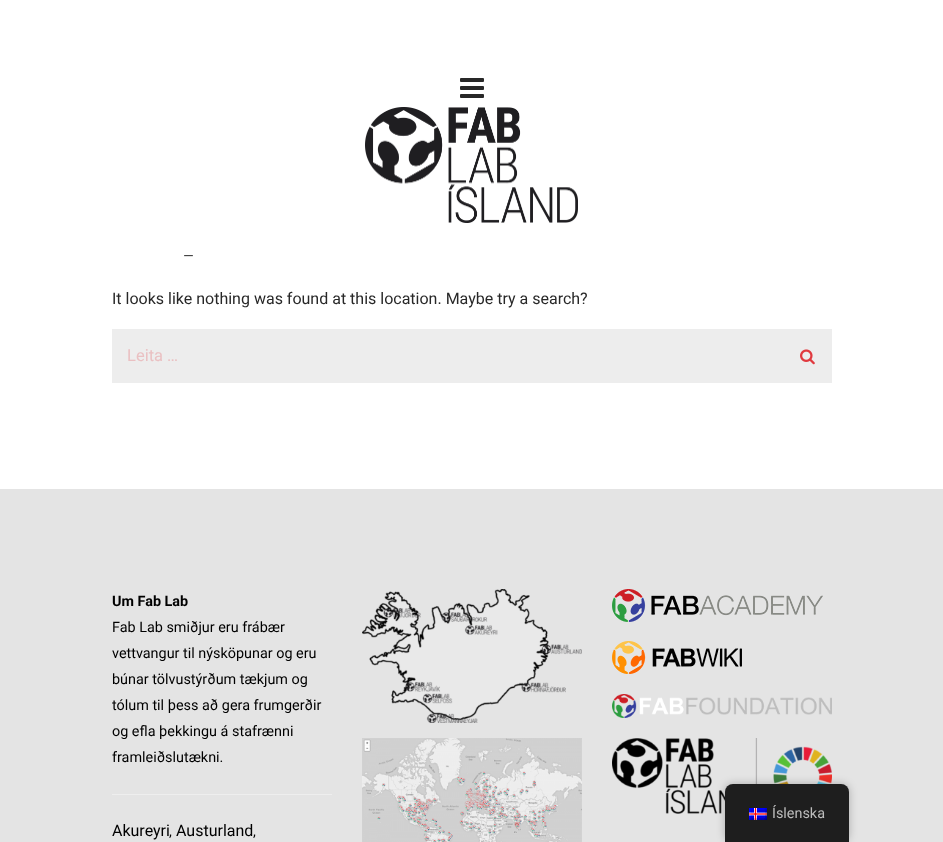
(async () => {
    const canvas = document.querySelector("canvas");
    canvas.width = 943;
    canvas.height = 842;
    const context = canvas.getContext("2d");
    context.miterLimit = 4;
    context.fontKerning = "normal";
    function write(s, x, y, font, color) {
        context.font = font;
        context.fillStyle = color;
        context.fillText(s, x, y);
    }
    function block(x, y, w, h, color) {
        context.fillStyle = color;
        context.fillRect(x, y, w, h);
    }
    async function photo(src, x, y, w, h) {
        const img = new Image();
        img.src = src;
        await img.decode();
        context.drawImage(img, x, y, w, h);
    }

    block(0, 0, 943, 842, "rgb(255, 255, 255)");
    await photo("media/1.png", 460, 78, 24, 20);
    await photo("media/2.png", 365, 107, 213, 116);
    write("-", 183, 268, "100 38px Roboto", "rgb(40, 40, 40)");
    write("It looks like nothing was found at this location. Maybe try a search?", 112, 304, "16px Roboto", "rgb(40, 40, 40)");
    block(112, 329, 720, 54, "rgb(237, 237, 237)");
    write("Leita …", 127, 361, "16.5px Roboto", "rgb(234, 192, 194)");
    await photo("media/3.png", 800, 349, 15, 16);
    block(0, 489, 943, 353, "rgb(228, 228, 228)");
    write("Um Fab Lab", 112, 606, "bold 14.4px Roboto", "rgb(0, 0, 0)");
    write("Fab Lab smiðjur eru frábær", 112, 632, "14.4px Roboto", "rgb(0, 0, 0)");
    write("vettvangur til nýsköpunar og eru", 112, 658, "14.4px Roboto", "rgb(0, 0, 0)");
    write("búnar tölvustýrðum tækjum og", 112, 684, "14.4px Roboto", "rgb(0, 0, 0)");
    write("tólum til þess að gera frumgerðir", 112, 710, "14.4px Roboto", "rgb(0, 0, 0)");
    write("og efla þekkingu á stafrænni", 112, 736, "14.4px Roboto", "rgb(0, 0, 0)");
    write("framleiðslutækni.", 112, 762, "14.4px Roboto", "rgb(0, 0, 0)");
    block(112, 794, 220, 1, "rgb(238, 238, 238)");
    write("Akureyri", 112, 836, "16px Roboto", "rgb(0, 0, 0)");
    write(",", 169, 836, "14.4px Roboto", "rgb(0, 0, 0)");
    write("Austurland", 176, 836, "16px Roboto", "rgb(0, 0, 0)");
    write(",", 253, 836, "14.4px Roboto", "rgb(0, 0, 0)");
    await photo("media/4.png", 362, 589, 220, 134);
    await photo("media/5.png", 362, 738, 220, 104);
    await photo("media/6.png", 612, 589, 211, 33);
    await photo("media/7.png", 612, 641, 130, 33);
    await photo("media/8.png", 612, 694, 220, 24);
    await photo("media/9.png", 612, 738, 220, 76);
    context.fillStyle = "rgba(0, 0, 0, 0.25)";
    context.filter = "blur(4px)";
    context.beginPath();
    context.roundRect(725, 784, 124, 58, 8);
    context.fill();
    context.filter = "none";
    context.fillStyle = "rgb(30, 30, 30)";
    context.beginPath();
    context.roundRect(725, 784, 124, 58, [8, 8, 0, 0]);
    context.fill();
    await photo("media/10.png", 749, 808, 18, 12);
    write("Íslenska", 772, 818, "14.4px Roboto", "rgb(189, 189, 189)");
})();
